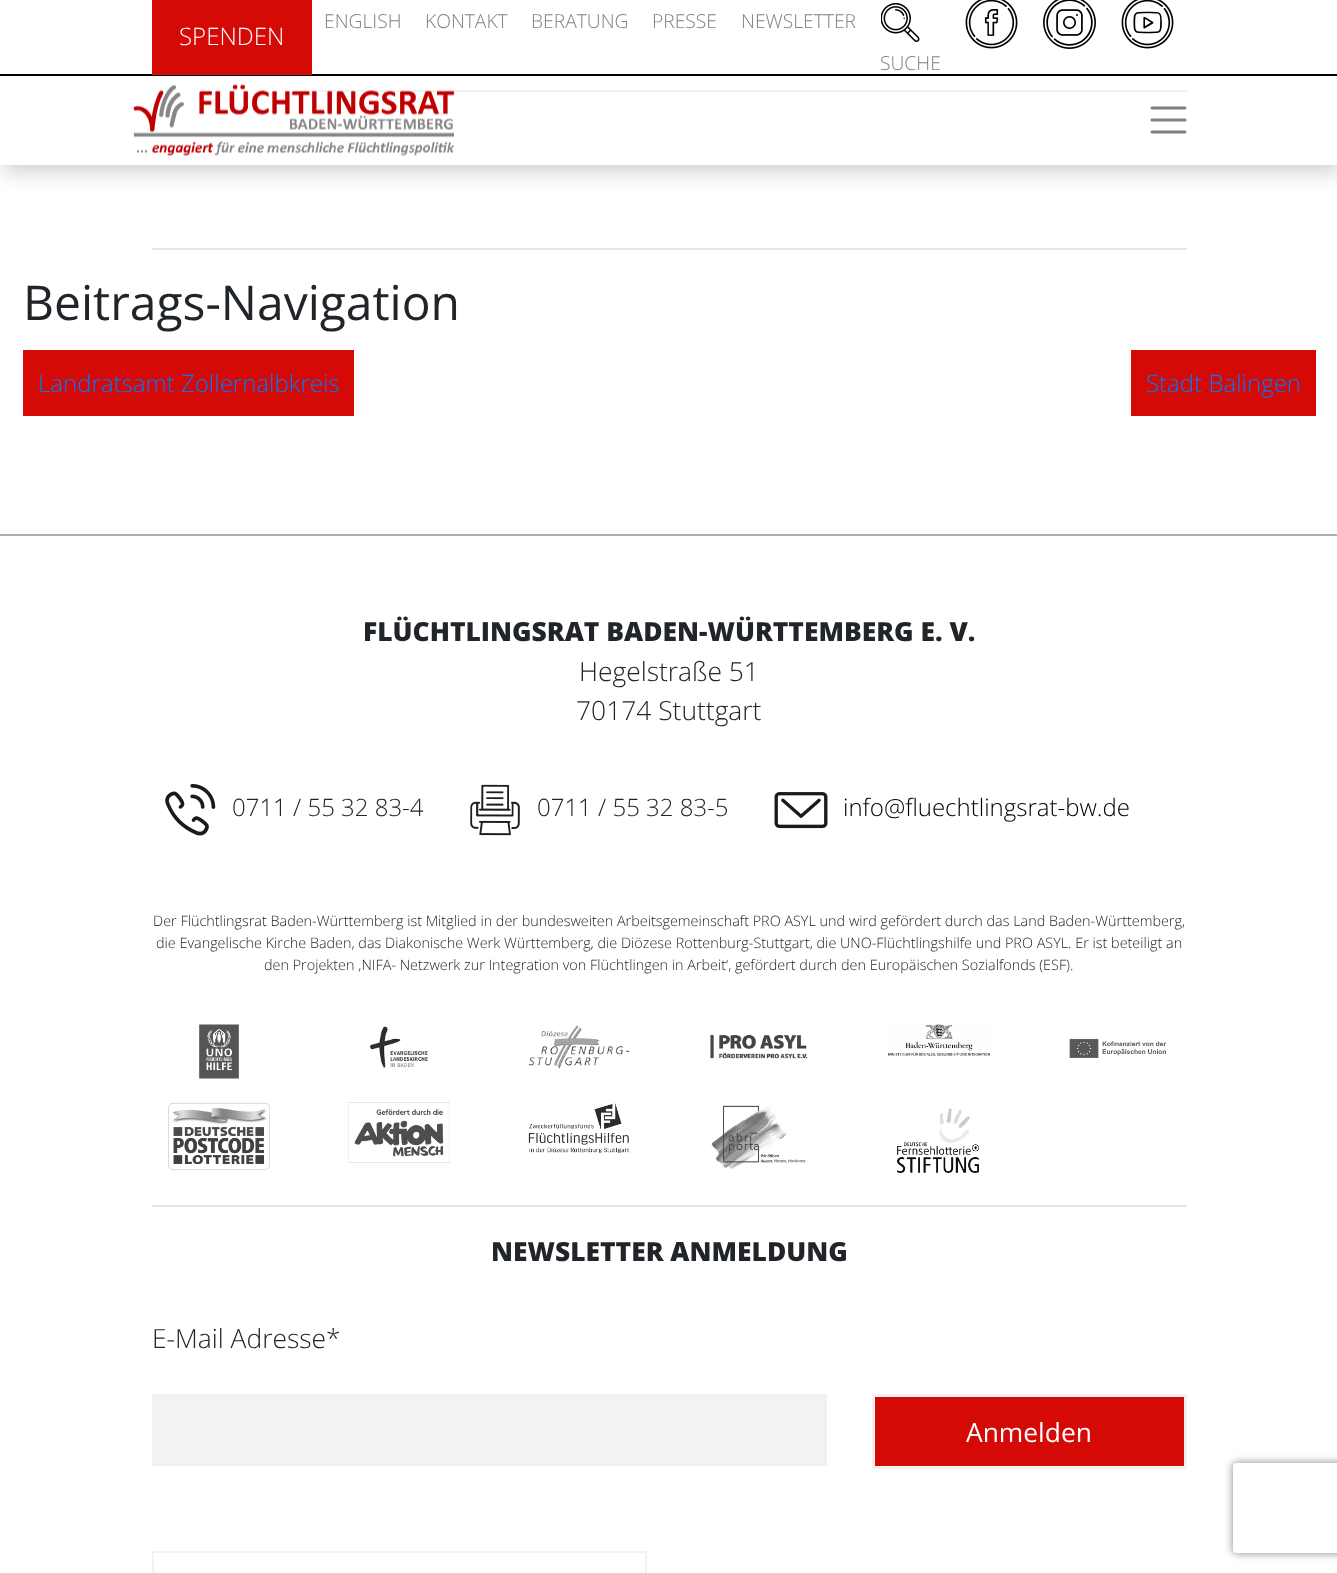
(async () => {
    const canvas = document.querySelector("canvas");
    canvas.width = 1337;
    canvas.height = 1573;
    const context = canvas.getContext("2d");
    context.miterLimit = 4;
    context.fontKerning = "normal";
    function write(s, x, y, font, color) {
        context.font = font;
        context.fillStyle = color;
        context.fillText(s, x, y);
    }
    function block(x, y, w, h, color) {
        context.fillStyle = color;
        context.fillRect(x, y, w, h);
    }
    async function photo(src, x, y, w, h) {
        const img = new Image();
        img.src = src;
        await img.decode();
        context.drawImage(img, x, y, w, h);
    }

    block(0, 0, 1337, 1573, "rgb(255, 255, 255)");
    context.fillStyle = "rgba(0, 0, 0, 0.2)";
    context.filter = "blur(11px)";
    context.beginPath();
    context.rect(3, 6, 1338, 165);
    context.fill();
    context.filter = "none";
    block(0, 0, 1337, 165, "rgb(255, 255, 255)");
    block(0, 74, 1337, 2, "rgb(0, 0, 0)");
    block(152, 0, 160, 75, "rgb(213, 9, 6)");
    write("SPENDEN", 179, 45, "300 24px Open Sans", "rgb(255, 255, 255)");
    block(312, 90, 875, 2, "rgb(242, 242, 242)");
    write("ENGLISH", 324, 28, "300 19.25px Open Sans", "rgb(128, 128, 128)");
    write("KONTAKT", 425, 28, "300 19.25px Open Sans", "rgb(128, 128, 128)");
    write("BERATUNG", 531, 28, "300 19.25px Open Sans", "rgb(128, 128, 128)");
    write("PRESSE", 652, 28, "300 19.25px Open Sans", "rgb(128, 128, 128)");
    write("NEWSLETTER", 741, 28, "300 19.25px Open Sans", "rgb(128, 128, 128)");
    await photo("media/1.png", 965, 0, 53, 49);
    await photo("media/2.png", 1043, 0, 53, 49);
    await photo("media/3.png", 1121, 0, 53, 49);
    await photo("media/4.png", 881, 3, 39, 39);
    write("SUCHE", 880, 70, "300 19.25px Open Sans", "rgb(128, 128, 128)");
    await photo("media/5.png", 133, 84, 322, 72);
    context.beginPath();
    context.moveTo(1152, 108);
    context.lineTo(1185, 108);
    context.moveTo(1152, 120);
    context.lineTo(1185, 120);
    context.moveTo(1152, 132);
    context.lineTo(1185, 132);
    context.strokeStyle = "rgb(128, 128, 128)";
    context.lineWidth = 3;
    context.lineCap = "round";
    context.stroke();
    block(152, 248, 1035, 2, "rgb(230, 230, 230)");
    write("Beitrags-Navigation", 23, 320, "48px Open Sans", "rgb(33, 37, 41)");
    block(23, 350, 331, 66, "rgb(213, 9, 6)");
    write("Landratsamt Zollernalbkreis", 38, 392, "300 24px Open Sans", "rgb(0, 123, 255)");
    block(1131, 350, 185, 66, "rgb(213, 9, 6)");
    write("Stadt Balingen", 1146, 392, "300 24px Open Sans", "rgb(0, 123, 255)");
    block(0, 534, 1337, 2, "rgb(176, 176, 176)");
    write("FLÜCHTLINGSRAT BADEN-WÜRTTEMBERG E. V.", 363, 641, "800 26.4px Open Sans", "rgb(33, 37, 41)");
    write("Hegelstraße 51", 579, 681, "300 26.4px Open Sans", "rgb(33, 37, 41)");
    write("70174 Stuttgart", 576, 720, "300 26.4px Open Sans", "rgb(33, 37, 41)");
    await photo("media/6.png", 165, 784, 51, 52);
    write("0711 / 55 32 83-4", 232, 816, "300 24px Open Sans", "rgb(33, 37, 41)");
    await photo("media/7.png", 470, 784, 50, 52);
    write("0711 / 55 32 83-5", 537, 816, "300 24px Open Sans", "rgb(33, 37, 41)");
    await photo("media/8.png", 774, 792, 54, 37);
    write("info@fluechtlingsrat-bw.de", 843, 816, "300 24px Open Sans", "rgb(0, 0, 0)");
    write("Der Flüchtlingsrat Baden-Württemberg ist Mitglied in der bundesweiten Arbeitsgemeinschaft PRO ASYL und wird gefördert durch das Land Baden-Württemberg,", 153, 926, "300 14.4px Open Sans", "rgb(33, 37, 41)");
    write("die Evangelische Kirche Baden, das Diakonische Werk Württemberg, die Diözese Rottenburg-Stuttgart, die UNO-Flüchtlingshilfe und PRO ASYL. Er ist beteiligt an", 156, 948, "300 14.4px Open Sans", "rgb(33, 37, 41)");
    write("den Projekten ‚NIFA- Netzwerk zur Integration von Flüchtlingen in Arbeit‘, gefördert durch den Europäischen Sozialfonds (ESF).", 264, 970, "300 14.4px Open Sans", "rgb(33, 37, 41)");
    await photo("media/9.png", 199, 1024, 40, 55);
    await photo("media/10.png", 369, 1026, 59, 42);
    await photo("media/11.png", 528, 1025, 102, 44);
    await photo("media/12.png", 710, 1035, 98, 24);
    await photo("media/13.png", 888, 1024, 102, 32);
    await photo("media/14.png", 1069, 1039, 97, 19);
    await photo("media/15.png", 168, 1102, 102, 68);
    await photo("media/16.png", 348, 1102, 102, 61);
    await photo("media/17.png", 528, 1103, 101, 50);
    await photo("media/18.png", 711, 1105, 95, 64);
    await photo("media/19.png", 897, 1108, 82, 65);
    block(152, 1205, 1035, 2, "rgb(230, 230, 230)");
    write("NEWSLETTER ANMELDUNG", 491, 1261, "800 26.4px Open Sans", "rgb(33, 37, 41)");
    write("E-Mail Adresse*", 152, 1348, "300 26.4px Open Sans", "rgb(33, 37, 41)");
    block(152, 1394, 675, 72, "rgb(242, 242, 242)");
    context.fillStyle = "rgb(213, 9, 6)";
    context.beginPath();
    context.rect(873.5, 1395.5, 312, 72);
    context.fill();
    context.strokeStyle = "rgb(242, 242, 242)";
    context.stroke();
    write("Anmelden", 966, 1442, "26.4px Open Sans", "rgb(255, 255, 255)");
    context.lineWidth = 2;
    context.strokeRect(153, 1552, 493, 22);
    context.save();
    context.beginPath();
    context.moveTo(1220, 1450);
    context.lineTo(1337, 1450);
    context.lineTo(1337, 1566);
    context.lineTo(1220, 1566);
    context.closePath();
    context.moveTo(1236, 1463);
    context.lineTo(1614, 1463);
    context.bezierCurveTo(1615.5, 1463, 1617, 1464.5, 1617, 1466);
    context.lineTo(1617, 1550);
    context.bezierCurveTo(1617, 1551.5, 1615.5, 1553, 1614, 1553);
    context.lineTo(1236, 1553);
    context.bezierCurveTo(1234.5, 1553, 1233, 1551.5, 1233, 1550);
    context.lineTo(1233, 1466);
    context.bezierCurveTo(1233, 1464.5, 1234.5, 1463, 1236, 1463);
    context.closePath();
    context.clip("evenodd");
    context.fillStyle = "rgb(128, 128, 128)";
    context.filter = "blur(4px)";
    context.beginPath();
    context.roundRect(1233, 1463, 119, 90, 3);
    context.fill();
    context.filter = "none";
    context.restore();
})();
